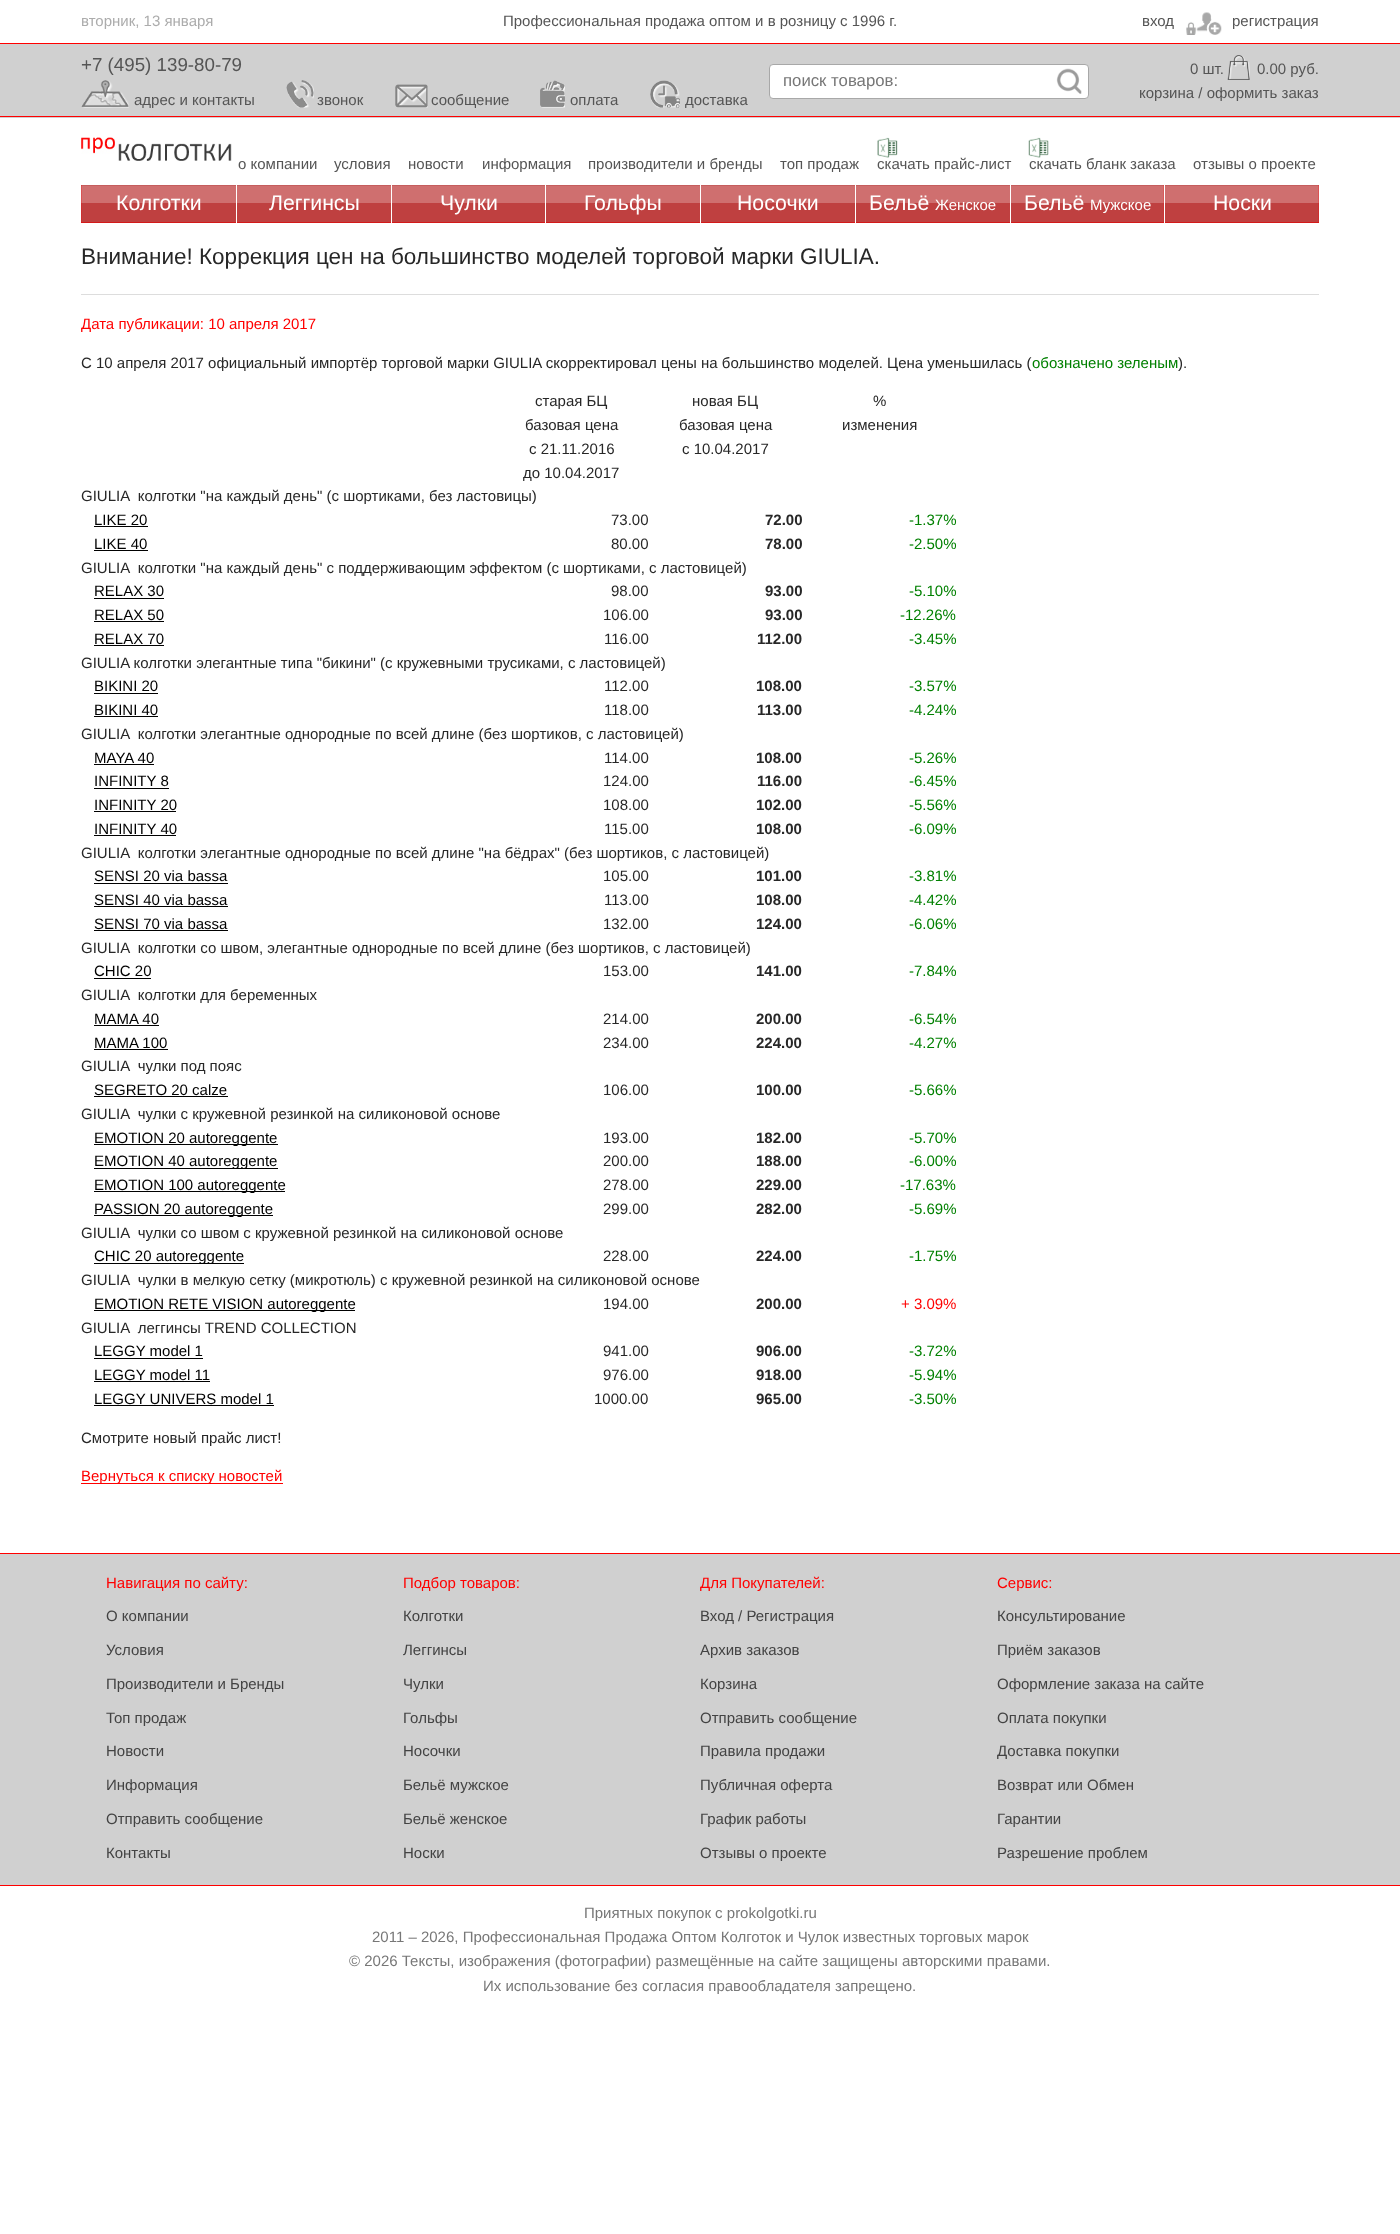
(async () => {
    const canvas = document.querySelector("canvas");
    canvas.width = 1400;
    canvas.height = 2234;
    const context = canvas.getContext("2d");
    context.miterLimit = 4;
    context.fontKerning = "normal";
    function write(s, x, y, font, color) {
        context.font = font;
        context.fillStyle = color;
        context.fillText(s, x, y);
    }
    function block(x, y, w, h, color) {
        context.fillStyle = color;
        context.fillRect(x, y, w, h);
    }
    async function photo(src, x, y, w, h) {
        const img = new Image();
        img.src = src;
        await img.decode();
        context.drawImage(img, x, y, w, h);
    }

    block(0, 0, 1400, 2234, "rgb(255, 255, 255)");
    write("вторник, 13 января", 81, 26, "15px Liberation Sans", "rgb(172, 172, 172)");
    write("Профессиональная продажа оптом и в розницу c 1996 г.", 503, 26, "15px Liberation Sans", "rgb(85, 85, 85)");
    write("вход", 1142, 26, "15px Liberation Sans", "rgb(85, 85, 85)");
    await photo("media/1.png", 1186, 12, 36, 23);
    write("регистрация", 1232, 26, "15px Liberation Sans", "rgb(85, 85, 85)");
    block(0, 44, 1400, 74, "rgb(208, 208, 208)");
    block(0, 43, 1400, 1, "rgb(255, 0, 0)");
    block(0, 116, 1400, 1, "rgb(255, 0, 0)");
    write("+7 (495) 139-80-79", 81, 71, "18.75px Liberation Sans", "rgb(85, 85, 85)");
    context.fillStyle = "rgb(255, 255, 255)";
    context.beginPath();
    context.roundRect(769.5, 64.5, 319, 34, 3.5);
    context.fill();
    context.strokeStyle = "rgb(168, 168, 168)";
    context.stroke();
    write("поиск товаров:", 783, 86, "16.75px Liberation Sans", "rgb(119, 119, 119)");
    await photo("media/2.png", 1056, 68, 26, 26);
    write("0 шт.", 1190, 74, "15px Liberation Sans", "rgb(85, 85, 85)");
    await photo("media/3.png", 1227, 55, 23, 25);
    write("0.00 руб.", 1257, 74, "15px Liberation Sans", "rgb(85, 85, 85)");
    write("корзина / оформить заказ", 1139, 98, "15px Liberation Sans", "rgb(85, 85, 85)");
    await photo("media/4.png", 81, 80, 48, 28);
    write("адрес и контакты", 134, 105, "15px Liberation Sans", "rgb(85, 85, 85)");
    await photo("media/5.png", 286, 80, 28, 28);
    write("звонок", 317, 105, "15px Liberation Sans", "rgb(85, 85, 85)");
    await photo("media/6.png", 395, 84, 33, 24);
    write("сообщение", 431, 105, "15px Liberation Sans", "rgb(85, 85, 85)");
    await photo("media/7.png", 540, 80, 25, 28);
    write("оплата", 570, 105, "15px Liberation Sans", "rgb(85, 85, 85)");
    await photo("media/8.png", 650, 80, 30, 28);
    write("доставка", 685, 105, "15px Liberation Sans", "rgb(85, 85, 85)");
    await photo("media/9.png", 81, 137, 151, 24);
    write("о компании", 238, 169, "15px Liberation Sans", "rgb(85, 85, 85)");
    write("условия", 334, 169, "15px Liberation Sans", "rgb(85, 85, 85)");
    write("новости", 408, 169, "15px Liberation Sans", "rgb(85, 85, 85)");
    write("информация", 482, 169, "15px Liberation Sans", "rgb(85, 85, 85)");
    write("производители и бренды", 588, 169, "15px Liberation Sans", "rgb(85, 85, 85)");
    write("топ продаж", 780, 169, "15px Liberation Sans", "rgb(85, 85, 85)");
    write("скачать прайс-лист", 877, 169, "15px Liberation Sans", "rgb(85, 85, 85)");
    await photo("media/10.png", 877, 137, 21, 21);
    await photo("media/11.png", 1028, 137, 21, 21);
    write("скачать бланк заказа", 1029, 169, "15px Liberation Sans", "rgb(85, 85, 85)");
    write("отзывы о проекте", 1193, 169, "15px Liberation Sans", "rgb(85, 85, 85)");
    block(81, 185, 155, 38, "rgb(255, 0, 0)");
    await photo("media/12.png", 81, 185, 155, 38);
    write("Колготки", 116, 210, "21.25px Liberation Sans", "rgb(255, 255, 255)");
    block(237, 222, 154, 1, "rgb(255, 0, 0)");
    await photo("media/13.png", 237, 185, 154, 38);
    write("Леггинсы", 269, 210, "21.25px Liberation Sans", "rgb(255, 255, 255)");
    block(392, 222, 153, 1, "rgb(255, 0, 0)");
    await photo("media/14.png", 392, 185, 153, 38);
    write("Чулки", 440, 210, "21.25px Liberation Sans", "rgb(255, 255, 255)");
    block(546, 222, 154, 1, "rgb(255, 0, 0)");
    await photo("media/13.png", 546, 185, 154, 38);
    write("Гольфы", 584, 210, "21.25px Liberation Sans", "rgb(255, 255, 255)");
    block(701, 222, 154, 1, "rgb(255, 0, 0)");
    await photo("media/13.png", 701, 185, 154, 38);
    write("Носочки", 737, 210, "21.25px Liberation Sans", "rgb(255, 255, 255)");
    block(856, 222, 154, 1, "rgb(255, 0, 0)");
    await photo("media/13.png", 856, 185, 154, 38);
    write("Бельё", 869, 210, "21.25px Liberation Sans", "rgb(255, 255, 255)");
    write("Женское", 935, 210, "15px Liberation Sans", "rgb(255, 255, 255)");
    block(1011, 185, 153, 38, "rgb(255, 0, 0)");
    await photo("media/15.png", 1011, 185, 153, 38);
    write("Бельё", 1024, 210, "21.25px Liberation Sans", "rgb(255, 255, 255)");
    write("Мужское", 1090, 210, "15px Liberation Sans", "rgb(255, 255, 255)");
    block(1165, 185, 154, 38, "rgb(255, 0, 0)");
    await photo("media/16.png", 1163, 185, 156, 38);
    block(1164, 185, 1, 38, "rgb(255, 255, 255)");
    write("Носки", 1213, 210, "21.25px Liberation Sans", "rgb(255, 255, 255)");
    block(81, 294, 1238, 1, "rgb(221, 221, 221)");
    write("Внимание! Коррекция цен на большинство моделей торговой марки GIULIA.", 81, 264, "22.5px Liberation Sans", "rgb(39, 39, 39)");
    write("Дата публикации: 10 апреля 2017", 81, 329, "15px Liberation Sans", "rgb(255, 0, 0)");
    write("С 10 апреля 2017 официальный импортёр торговой марки GIULIA скорректировал цены на большинство моделей. Цена уменьшилась (", 81, 368, "15px Liberation Sans", "rgb(39, 39, 39)");
    write("обозначено зеленым", 1032, 368, "15px Liberation Sans", "rgb(0, 128, 0)");
    write(").", 1178, 368, "15px Liberation Sans", "rgb(39, 39, 39)");
    write("старая БЦ", 535, 406, "15px Liberation Sans", "rgb(39, 39, 39)");
    write("новая БЦ", 692, 406, "15px Liberation Sans", "rgb(39, 39, 39)");
    write("%", 873, 406, "15px Liberation Sans", "rgb(39, 39, 39)");
    write("базовая цена", 525, 430, "15px Liberation Sans", "rgb(39, 39, 39)");
    write("базовая цена", 679, 430, "15px Liberation Sans", "rgb(39, 39, 39)");
    write("изменения", 842, 430, "15px Liberation Sans", "rgb(39, 39, 39)");
    write("c 21.11.2016", 529, 454, "15px Liberation Sans", "rgb(39, 39, 39)");
    write("c 10.04.2017", 682, 454, "15px Liberation Sans", "rgb(39, 39, 39)");
    write("до 10.04.2017", 523, 478, "15px Liberation Sans", "rgb(39, 39, 39)");
    write("GIULIA  колготки \"на каждый день\" (с шортиками, без ластовицы)", 81, 501, "15px Liberation Sans", "rgb(39, 39, 39)");
    write("LIKE 20", 94, 525, "15px Liberation Sans", "rgb(0, 0, 0)");
    block(94, 526, 54, 1, "rgb(0, 0, 0)");
    write("73.00", 611, 525, "15px Liberation Sans", "rgb(39, 39, 39)");
    write("72.00", 765, 525, "bold 15px Liberation Sans", "rgb(39, 39, 39)");
    write("-1.37%", 909, 525, "15px Liberation Sans", "rgb(0, 128, 0)");
    write("LIKE 40", 94, 549, "15px Liberation Sans", "rgb(0, 0, 0)");
    block(94, 550, 54, 1, "rgb(0, 0, 0)");
    write("80.00", 611, 549, "15px Liberation Sans", "rgb(39, 39, 39)");
    write("78.00", 765, 549, "bold 15px Liberation Sans", "rgb(39, 39, 39)");
    write("-2.50%", 909, 549, "15px Liberation Sans", "rgb(0, 128, 0)");
    write("GIULIA  колготки \"на каждый день\" с поддерживающим эффектом (с шортиками, с ластовицей)", 81, 573, "15px Liberation Sans", "rgb(39, 39, 39)");
    write("RELAX 30", 94, 596, "15px Liberation Sans", "rgb(0, 0, 0)");
    block(94, 598, 70, 1, "rgb(0, 0, 0)");
    write("98.00", 611, 596, "15px Liberation Sans", "rgb(39, 39, 39)");
    write("93.00", 765, 596, "bold 15px Liberation Sans", "rgb(39, 39, 39)");
    write("-5.10%", 909, 596, "15px Liberation Sans", "rgb(0, 128, 0)");
    write("RELAX 50", 94, 620, "15px Liberation Sans", "rgb(0, 0, 0)");
    block(94, 621, 70, 1, "rgb(0, 0, 0)");
    write("106.00", 603, 620, "15px Liberation Sans", "rgb(39, 39, 39)");
    write("93.00", 765, 620, "bold 15px Liberation Sans", "rgb(39, 39, 39)");
    write("-12.26%", 900, 620, "15px Liberation Sans", "rgb(0, 128, 0)");
    write("RELAX 70", 94, 644, "15px Liberation Sans", "rgb(0, 0, 0)");
    block(94, 645, 70, 1, "rgb(0, 0, 0)");
    write("116.00", 604, 644, "15px Liberation Sans", "rgb(39, 39, 39)");
    write("112.00", 757, 644, "bold 15px Liberation Sans", "rgb(39, 39, 39)");
    write("-3.45%", 909, 644, "15px Liberation Sans", "rgb(0, 128, 0)");
    write("GIULIA колготки элегантные типа \"бикини\" (с кружевными трусиками, с ластовицей)", 81, 668, "15px Liberation Sans", "rgb(39, 39, 39)");
    write("BIKINI 20", 94, 691, "15px Liberation Sans", "rgb(0, 0, 0)");
    block(94, 693, 64, 1, "rgb(0, 0, 0)");
    write("112.00", 604, 691, "15px Liberation Sans", "rgb(39, 39, 39)");
    write("108.00", 756, 691, "bold 15px Liberation Sans", "rgb(39, 39, 39)");
    write("-3.57%", 909, 691, "15px Liberation Sans", "rgb(0, 128, 0)");
    write("BIKINI 40", 94, 715, "15px Liberation Sans", "rgb(0, 0, 0)");
    block(94, 716, 64, 1, "rgb(0, 0, 0)");
    write("118.00", 604, 715, "15px Liberation Sans", "rgb(39, 39, 39)");
    write("113.00", 757, 715, "bold 15px Liberation Sans", "rgb(39, 39, 39)");
    write("-4.24%", 909, 715, "15px Liberation Sans", "rgb(0, 128, 0)");
    write("GIULIA  колготки элегантные однородные по всей длине (без шортиков, с ластовицей)", 81, 739, "15px Liberation Sans", "rgb(39, 39, 39)");
    write("MAYA 40", 94, 763, "15px Liberation Sans", "rgb(0, 0, 0)");
    block(94, 764, 60, 1, "rgb(0, 0, 0)");
    write("114.00", 604, 763, "15px Liberation Sans", "rgb(39, 39, 39)");
    write("108.00", 756, 763, "bold 15px Liberation Sans", "rgb(39, 39, 39)");
    write("-5.26%", 909, 763, "15px Liberation Sans", "rgb(0, 128, 0)");
    write("INFINITY 8", 94, 786, "15px Liberation Sans", "rgb(0, 0, 0)");
    block(94, 788, 75, 1, "rgb(0, 0, 0)");
    write("124.00", 603, 786, "15px Liberation Sans", "rgb(39, 39, 39)");
    write("116.00", 757, 786, "bold 15px Liberation Sans", "rgb(39, 39, 39)");
    write("-6.45%", 909, 786, "15px Liberation Sans", "rgb(0, 128, 0)");
    write("INFINITY 20", 94, 810, "15px Liberation Sans", "rgb(0, 0, 0)");
    block(94, 811, 82, 1, "rgb(0, 0, 0)");
    write("108.00", 603, 810, "15px Liberation Sans", "rgb(39, 39, 39)");
    write("102.00", 756, 810, "bold 15px Liberation Sans", "rgb(39, 39, 39)");
    write("-5.56%", 909, 810, "15px Liberation Sans", "rgb(0, 128, 0)");
    write("INFINITY 40", 94, 834, "15px Liberation Sans", "rgb(0, 0, 0)");
    block(94, 835, 82, 1, "rgb(0, 0, 0)");
    write("115.00", 604, 834, "15px Liberation Sans", "rgb(39, 39, 39)");
    write("108.00", 756, 834, "bold 15px Liberation Sans", "rgb(39, 39, 39)");
    write("-6.09%", 909, 834, "15px Liberation Sans", "rgb(0, 128, 0)");
    write("GIULIA  колготки элегантные однородные по всей длине \"на бёдрах\" (без шортиков, с ластовицей)", 81, 858, "15px Liberation Sans", "rgb(39, 39, 39)");
    write("SENSI 20 via bassa", 94, 881, "15px Liberation Sans", "rgb(0, 0, 0)");
    block(94, 883, 134, 1, "rgb(0, 0, 0)");
    write("105.00", 603, 881, "15px Liberation Sans", "rgb(39, 39, 39)");
    write("101.00", 756, 881, "bold 15px Liberation Sans", "rgb(39, 39, 39)");
    write("-3.81%", 909, 881, "15px Liberation Sans", "rgb(0, 128, 0)");
    write("SENSI 40 via bassa", 94, 905, "15px Liberation Sans", "rgb(0, 0, 0)");
    block(94, 906, 134, 1, "rgb(0, 0, 0)");
    write("113.00", 604, 905, "15px Liberation Sans", "rgb(39, 39, 39)");
    write("108.00", 756, 905, "bold 15px Liberation Sans", "rgb(39, 39, 39)");
    write("-4.42%", 909, 905, "15px Liberation Sans", "rgb(0, 128, 0)");
    write("SENSI 70 via bassa", 94, 929, "15px Liberation Sans", "rgb(0, 0, 0)");
    block(94, 930, 134, 1, "rgb(0, 0, 0)");
    write("132.00", 603, 929, "15px Liberation Sans", "rgb(39, 39, 39)");
    write("124.00", 756, 929, "bold 15px Liberation Sans", "rgb(39, 39, 39)");
    write("-6.06%", 909, 929, "15px Liberation Sans", "rgb(0, 128, 0)");
    write("GIULIA  колготки со швом, элегантные однородные по всей длине (без шортиков, с ластовицей)", 81, 953, "15px Liberation Sans", "rgb(39, 39, 39)");
    write("CHIC 20", 94, 976, "15px Liberation Sans", "rgb(0, 0, 0)");
    block(94, 978, 57, 1, "rgb(0, 0, 0)");
    write("153.00", 603, 976, "15px Liberation Sans", "rgb(39, 39, 39)");
    write("141.00", 756, 976, "bold 15px Liberation Sans", "rgb(39, 39, 39)");
    write("-7.84%", 909, 976, "15px Liberation Sans", "rgb(0, 128, 0)");
    write("GIULIA  колготки для беременных", 81, 1000, "15px Liberation Sans", "rgb(39, 39, 39)");
    write("MAMA 40", 94, 1024, "15px Liberation Sans", "rgb(0, 0, 0)");
    block(94, 1025, 65, 1, "rgb(0, 0, 0)");
    write("214.00", 603, 1024, "15px Liberation Sans", "rgb(39, 39, 39)");
    write("200.00", 756, 1024, "bold 15px Liberation Sans", "rgb(39, 39, 39)");
    write("-6.54%", 909, 1024, "15px Liberation Sans", "rgb(0, 128, 0)");
    write("MAMA 100", 94, 1048, "15px Liberation Sans", "rgb(0, 0, 0)");
    block(94, 1049, 74, 1, "rgb(0, 0, 0)");
    write("234.00", 603, 1048, "15px Liberation Sans", "rgb(39, 39, 39)");
    write("224.00", 756, 1048, "bold 15px Liberation Sans", "rgb(39, 39, 39)");
    write("-4.27%", 909, 1048, "15px Liberation Sans", "rgb(0, 128, 0)");
    write("GIULIA  чулки под пояс", 81, 1071, "15px Liberation Sans", "rgb(39, 39, 39)");
    write("SEGRETO 20 calze", 94, 1095, "15px Liberation Sans", "rgb(0, 0, 0)");
    block(94, 1096, 134, 1, "rgb(0, 0, 0)");
    write("106.00", 603, 1095, "15px Liberation Sans", "rgb(39, 39, 39)");
    write("100.00", 756, 1095, "bold 15px Liberation Sans", "rgb(39, 39, 39)");
    write("-5.66%", 909, 1095, "15px Liberation Sans", "rgb(0, 128, 0)");
    write("GIULIA  чулки с кружевной резинкой на силиконовой основе", 81, 1119, "15px Liberation Sans", "rgb(39, 39, 39)");
    block(94, 1144, 184, 1, "rgb(0, 0, 0)");
    write("EMOTION 20 autoreggente", 94, 1143, "15px Liberation Sans", "rgb(0, 0, 0)");
    write("193.00", 603, 1143, "15px Liberation Sans", "rgb(39, 39, 39)");
    write("182.00", 756, 1143, "bold 15px Liberation Sans", "rgb(39, 39, 39)");
    write("-5.70%", 909, 1143, "15px Liberation Sans", "rgb(0, 128, 0)");
    block(94, 1168, 184, 1, "rgb(0, 0, 0)");
    write("EMOTION 40 autoreggente", 94, 1166, "15px Liberation Sans", "rgb(0, 0, 0)");
    write("200.00", 603, 1166, "15px Liberation Sans", "rgb(39, 39, 39)");
    write("188.00", 756, 1166, "bold 15px Liberation Sans", "rgb(39, 39, 39)");
    write("-6.00%", 909, 1166, "15px Liberation Sans", "rgb(0, 128, 0)");
    block(94, 1191, 191, 1, "rgb(0, 0, 0)");
    write("EMOTION 100 autoreggente", 94, 1190, "15px Liberation Sans", "rgb(0, 0, 0)");
    write("278.00", 603, 1190, "15px Liberation Sans", "rgb(39, 39, 39)");
    write("229.00", 756, 1190, "bold 15px Liberation Sans", "rgb(39, 39, 39)");
    write("-17.63%", 900, 1190, "15px Liberation Sans", "rgb(0, 128, 0)");
    block(94, 1215, 179, 1, "rgb(0, 0, 0)");
    write("PASSION 20 autoreggente", 94, 1214, "15px Liberation Sans", "rgb(0, 0, 0)");
    write("299.00", 603, 1214, "15px Liberation Sans", "rgb(39, 39, 39)");
    write("282.00", 756, 1214, "bold 15px Liberation Sans", "rgb(39, 39, 39)");
    write("-5.69%", 909, 1214, "15px Liberation Sans", "rgb(0, 128, 0)");
    write("GIULIA  чулки со швом с кружевной резинкой на силиконовой основе", 81, 1238, "15px Liberation Sans", "rgb(39, 39, 39)");
    block(94, 1263, 150, 1, "rgb(0, 0, 0)");
    write("CHIC 20 autoreggente", 94, 1261, "15px Liberation Sans", "rgb(0, 0, 0)");
    write("228.00", 603, 1261, "15px Liberation Sans", "rgb(39, 39, 39)");
    write("224.00", 756, 1261, "bold 15px Liberation Sans", "rgb(39, 39, 39)");
    write("-1.75%", 909, 1261, "15px Liberation Sans", "rgb(0, 128, 0)");
    write("GIULIA  чулки в мелкую сетку (микротюль) с кружевной резинкой на силиконовой основе", 81, 1285, "15px Liberation Sans", "rgb(39, 39, 39)");
    block(94, 1310, 261, 1, "rgb(0, 0, 0)");
    write("EMOTION RETE VISION autoreggente", 94, 1309, "15px Liberation Sans", "rgb(0, 0, 0)");
    write("194.00", 603, 1309, "15px Liberation Sans", "rgb(39, 39, 39)");
    write("200.00", 756, 1309, "bold 15px Liberation Sans", "rgb(39, 39, 39)");
    write("+ 3.09%", 901, 1309, "15px Liberation Sans", "rgb(255, 0, 0)");
    write("GIULIA  леггинсы TREND COLLECTION", 81, 1333, "15px Liberation Sans", "rgb(39, 39, 39)");
    write("LEGGY model 1", 94, 1356, "15px Liberation Sans", "rgb(0, 0, 0)");
    block(94, 1358, 109, 1, "rgb(0, 0, 0)");
    write("941.00", 603, 1356, "15px Liberation Sans", "rgb(39, 39, 39)");
    write("906.00", 756, 1356, "bold 15px Liberation Sans", "rgb(39, 39, 39)");
    write("-3.72%", 909, 1356, "15px Liberation Sans", "rgb(0, 128, 0)");
    write("LEGGY model 11", 94, 1380, "15px Liberation Sans", "rgb(0, 0, 0)");
    block(94, 1381, 116, 1, "rgb(0, 0, 0)");
    write("976.00", 603, 1380, "15px Liberation Sans", "rgb(39, 39, 39)");
    write("918.00", 756, 1380, "bold 15px Liberation Sans", "rgb(39, 39, 39)");
    write("-5.94%", 909, 1380, "15px Liberation Sans", "rgb(0, 128, 0)");
    write("LEGGY UNIVERS model 1", 94, 1404, "15px Liberation Sans", "rgb(0, 0, 0)");
    block(94, 1405, 180, 1, "rgb(0, 0, 0)");
    write("1000.00", 594, 1404, "15px Liberation Sans", "rgb(39, 39, 39)");
    write("965.00", 756, 1404, "bold 15px Liberation Sans", "rgb(39, 39, 39)");
    write("-3.50%", 909, 1404, "15px Liberation Sans", "rgb(0, 128, 0)");
    write("Смотрите новый прайс лист!", 81, 1443, "15px Liberation Sans", "rgb(39, 39, 39)");
    block(81, 1483, 202, 1, "rgb(255, 0, 0)");
    write("Вернуться к списку новостей", 81, 1481, "15px Liberation Sans", "rgb(255, 0, 0)");
    block(0, 1554, 1400, 331, "rgb(208, 208, 208)");
    block(0, 1553, 1400, 1, "rgb(255, 0, 0)");
    block(0, 1885, 1400, 1, "rgb(255, 0, 0)");
    write("Навигация по сайту:", 106, 1588, "15px Liberation Sans", "rgb(255, 0, 0)");
    write("О компании", 106, 1621, "15px Liberation Sans", "rgb(67, 67, 67)");
    write("Условия", 106, 1655, "15px Liberation Sans", "rgb(67, 67, 67)");
    write("Производители и Бренды", 106, 1689, "15px Liberation Sans", "rgb(67, 67, 67)");
    write("Топ продаж", 106, 1723, "15px Liberation Sans", "rgb(67, 67, 67)");
    write("Новости", 106, 1756, "15px Liberation Sans", "rgb(67, 67, 67)");
    write("Информация", 106, 1790, "15px Liberation Sans", "rgb(67, 67, 67)");
    write("Отправить сообщение", 106, 1824, "15px Liberation Sans", "rgb(67, 67, 67)");
    write("Контакты", 106, 1858, "15px Liberation Sans", "rgb(67, 67, 67)");
    write("Подбор товаров:", 403, 1588, "15px Liberation Sans", "rgb(255, 0, 0)");
    write("Колготки", 403, 1621, "15px Liberation Sans", "rgb(67, 67, 67)");
    write("Леггинсы", 403, 1655, "15px Liberation Sans", "rgb(67, 67, 67)");
    write("Чулки", 403, 1689, "15px Liberation Sans", "rgb(67, 67, 67)");
    write("Гольфы", 403, 1723, "15px Liberation Sans", "rgb(67, 67, 67)");
    write("Носочки", 403, 1756, "15px Liberation Sans", "rgb(67, 67, 67)");
    write("Бельё мужское", 403, 1790, "15px Liberation Sans", "rgb(67, 67, 67)");
    write("Бельё женское", 403, 1824, "15px Liberation Sans", "rgb(67, 67, 67)");
    write("Носки", 403, 1858, "15px Liberation Sans", "rgb(67, 67, 67)");
    write("Для Покупателей:", 700, 1588, "15px Liberation Sans", "rgb(255, 0, 0)");
    write("Вход / Регистрация", 700, 1621, "15px Liberation Sans", "rgb(67, 67, 67)");
    write("Архив заказов", 700, 1655, "15px Liberation Sans", "rgb(67, 67, 67)");
    write("Корзина", 700, 1689, "15px Liberation Sans", "rgb(67, 67, 67)");
    write("Отправить сообщение", 700, 1723, "15px Liberation Sans", "rgb(67, 67, 67)");
    write("Правила продажи", 700, 1756, "15px Liberation Sans", "rgb(67, 67, 67)");
    write("Публичная оферта", 700, 1790, "15px Liberation Sans", "rgb(67, 67, 67)");
    write("График работы", 700, 1824, "15px Liberation Sans", "rgb(67, 67, 67)");
    write("Отзывы о проекте", 700, 1858, "15px Liberation Sans", "rgb(67, 67, 67)");
    write("Сервис:", 997, 1588, "15px Liberation Sans", "rgb(255, 0, 0)");
    write("Консультирование", 997, 1621, "15px Liberation Sans", "rgb(67, 67, 67)");
    write("Приём заказов", 997, 1655, "15px Liberation Sans", "rgb(67, 67, 67)");
    write("Оформление заказа на сайте", 997, 1689, "15px Liberation Sans", "rgb(67, 67, 67)");
    write("Оплата покупки", 997, 1723, "15px Liberation Sans", "rgb(67, 67, 67)");
    write("Доставка покупки", 997, 1756, "15px Liberation Sans", "rgb(67, 67, 67)");
    write("Возврат или Обмен", 997, 1790, "15px Liberation Sans", "rgb(67, 67, 67)");
    write("Гарантии", 997, 1824, "15px Liberation Sans", "rgb(67, 67, 67)");
    write("Разрешение проблем", 997, 1858, "15px Liberation Sans", "rgb(67, 67, 67)");
    write("Приятных покупок с prokolgotki.ru", 584, 1918, "15px Liberation Sans", "rgb(119, 119, 119)");
    write("2011 – 2026, Профессиональная Продажа Оптом Колготок и Чулок известных торговых марок", 372, 1942, "15px Liberation Sans", "rgb(119, 119, 119)");
    write("© 2026 Тексты, изображения (фотографии) размещённые на сайте защищены авторскими правами.", 349, 1966, "15px Liberation Sans", "rgb(119, 119, 119)");
    write("Их использование без согласия правообладателя запрещено.", 483, 1991, "15px Liberation Sans", "rgb(119, 119, 119)");
})();
